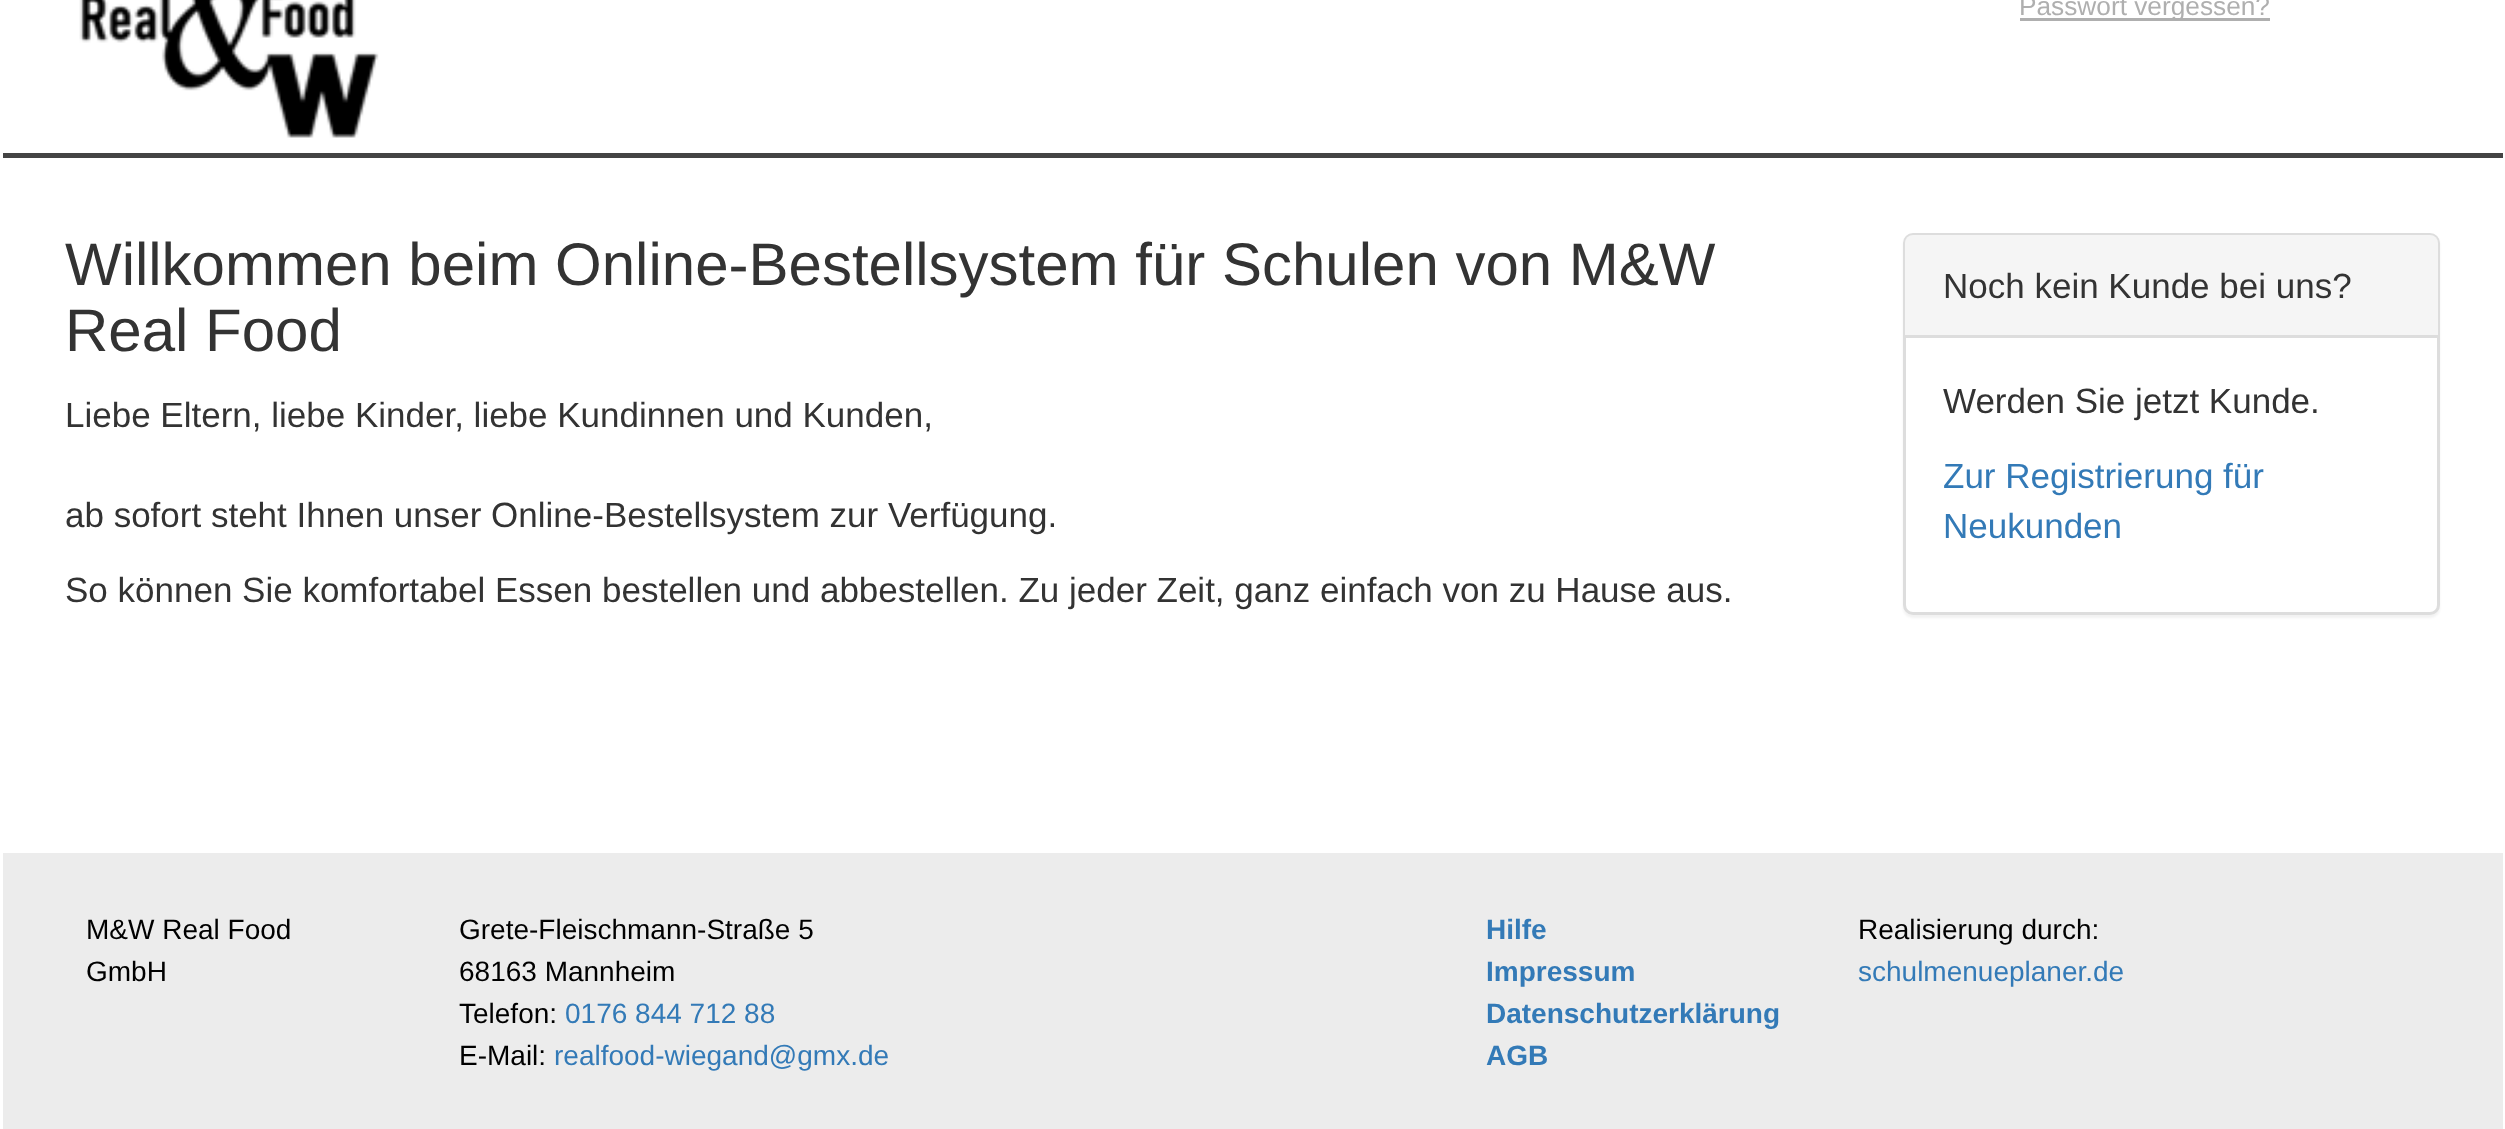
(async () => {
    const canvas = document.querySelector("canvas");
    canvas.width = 2505;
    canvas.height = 1129;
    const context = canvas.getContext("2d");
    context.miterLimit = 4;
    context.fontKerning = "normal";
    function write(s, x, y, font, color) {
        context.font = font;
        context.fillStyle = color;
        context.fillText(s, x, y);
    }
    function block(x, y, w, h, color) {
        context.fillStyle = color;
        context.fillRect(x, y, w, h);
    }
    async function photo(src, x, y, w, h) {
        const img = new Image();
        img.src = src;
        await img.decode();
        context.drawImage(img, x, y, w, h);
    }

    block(0, 0, 2505, 1129, "rgb(255, 255, 255)");
    block(3, 153, 2500, 5, "rgb(68, 68, 68)");
    await photo("media/1.png", 79, 0, 300, 138);
    block(2020, 18, 250, 3, "rgb(175, 175, 175)");
    write("Passwort vergessen?", 2019, 15, "26.25px Liberation Sans", "rgb(175, 175, 175)");
    write("Willkommen beim Online-Bestellsystem für Schulen von M&W", 65, 285, "60px Liberation Sans", "rgb(51, 51, 51)");
    write("Real Food", 65, 351, "60px Liberation Sans", "rgb(51, 51, 51)");
    write("Liebe Eltern, liebe Kinder, liebe Kundinnen und Kunden,", 65, 427, "35px Liberation Sans", "rgb(51, 51, 51)");
    write("ab sofort steht Ihnen unser Online-Bestellsystem zur Verfügung.", 65, 527, "35px Liberation Sans", "rgb(51, 51, 51)");
    write("So können Sie komfortabel Essen bestellen und abbestellen. Zu jeder Zeit, ganz einfach von zu Hause aus.", 65, 602, "35px Liberation Sans", "rgb(51, 51, 51)");
    context.fillStyle = "rgba(0, 0, 0, 0.05)";
    context.filter = "blur(1px)";
    context.beginPath();
    context.roundRect(1903, 235, 537, 383, 10);
    context.fill();
    context.filter = "none";
    context.fillStyle = "rgb(255, 255, 255)";
    context.beginPath();
    context.roundRect(1904.5, 234.5, 534, 379, 8.5);
    context.fill();
    context.strokeStyle = "rgb(221, 221, 221)";
    context.lineWidth = 3;
    context.stroke();
    context.fillStyle = "rgb(245, 245, 245)";
    context.beginPath();
    context.roundRect(1905, 235, 533, 103, [8, 8, 0, 0]);
    context.fill();
    block(1905, 335, 533, 3, "rgb(221, 221, 221)");
    write("Noch kein Kunde bei uns?", 1943, 298, "35px Liberation Sans", "rgb(51, 51, 51)");
    write("Werden Sie jetzt Kunde.", 1943, 413, "35px Liberation Sans", "rgb(51, 51, 51)");
    write("Zur Registrierung für", 1943, 488, "35px Liberation Sans", "rgb(51, 122, 183)");
    write("Neukunden", 1943, 538, "35px Liberation Sans", "rgb(51, 122, 183)");
    block(3, 853, 2500, 276, "rgb(236, 236, 236)");
    write("M&W Real Food", 86, 939, "28px Liberation Sans", "rgb(0, 0, 0)");
    write("GmbH", 86, 981, "28px Liberation Sans", "rgb(0, 0, 0)");
    write("Grete-Fleischmann-Straße 5", 459, 939, "28px Liberation Sans", "rgb(0, 0, 0)");
    write("68163 Mannheim", 459, 981, "28px Liberation Sans", "rgb(0, 0, 0)");
    write("Telefon:", 459, 1023, "28px Liberation Sans", "rgb(0, 0, 0)");
    write("0176 844 712 88", 565, 1023, "28px Liberation Sans", "rgb(51, 122, 183)");
    write("E-Mail:", 459, 1065, "28px Liberation Sans", "rgb(0, 0, 0)");
    write("realfood-wiegand@gmx.de", 554, 1065, "28px Liberation Sans", "rgb(51, 122, 183)");
    write("Hilfe", 1486, 939, "bold 28px Liberation Sans", "rgb(51, 122, 183)");
    write("Impressum", 1486, 981, "bold 28px Liberation Sans", "rgb(51, 122, 183)");
    write("Datenschutzerklärung", 1486, 1023, "bold 28px Liberation Sans", "rgb(51, 122, 183)");
    write("AGB", 1486, 1065, "bold 28px Liberation Sans", "rgb(51, 122, 183)");
    write("Realisierung durch:", 1858, 939, "28px Liberation Sans", "rgb(0, 0, 0)");
    write("schulmenueplaner.de", 1858, 981, "28px Liberation Sans", "rgb(51, 122, 183)");
})();
